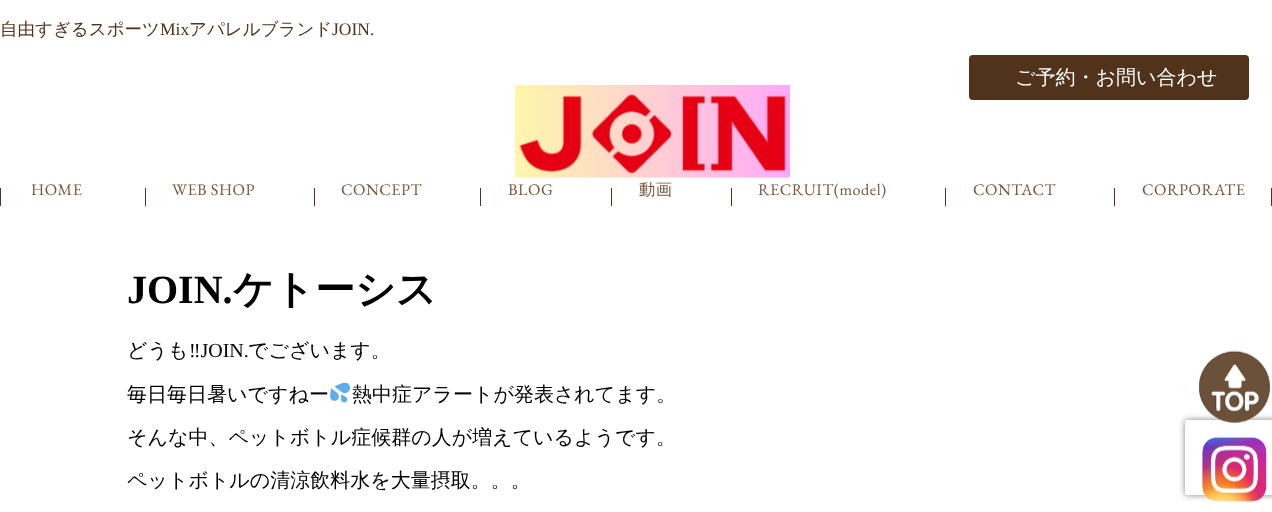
(async () => {
    const canvas = document.querySelector("canvas");
    canvas.width = 1272;
    canvas.height = 512;
    const context = canvas.getContext("2d");
    context.miterLimit = 4;
    context.fontKerning = "normal";
    function write(s, x, y, font, color) {
        context.font = font;
        context.fillStyle = color;
        context.fillText(s, x, y);
    }
    function block(x, y, w, h, color) {
        context.fillStyle = color;
        context.fillRect(x, y, w, h);
    }
    function card(x, y, w, h, r, color) {
        context.fillStyle = color;
        context.beginPath();
        context.roundRect(x, y, w, h, r);
        context.fill();
    }
    async function photo(src, x, y, w, h) {
        const img = new Image();
        img.src = src;
        await img.decode();
        context.drawImage(img, x, y, w, h);
    }

    block(0, 0, 1272, 512, "rgb(255, 255, 255)");
    write("自由すぎるスポーツ", 0, 35, "500 17.5px WenQuanYi Zen Hei", "rgb(81, 51, 27)");
    write("Mix", 160, 35, "17.5px Liberation Serif", "rgb(81, 51, 27)");
    write("アパレルブランド", 189, 35, "500 17.5px WenQuanYi Zen Hei", "rgb(81, 51, 27)");
    write("JOIN.", 332, 35, "17.5px Liberation Serif", "rgb(81, 51, 27)");
    card(969, 55, 280, 45, 4, "rgb(81, 51, 27)");
    write("ご予約・お問い合わせ", 1015, 84, "500 20px WenQuanYi Zen Hei", "rgb(255, 255, 255)");
    await photo("media/1.png", 515, 85, 275, 93);
    block(0, 188, 1, 18, "rgb(81, 51, 27)");
    context.letterSpacing = "0.5px";
    write("HOME", 31, 195, "16.25px EB Garamond", "rgb(119, 84, 57)");
    block(145, 188, 1, 18, "rgb(81, 51, 27)");
    write("WEB SHOP", 172, 195, "16.25px EB Garamond", "rgb(119, 84, 57)");
    block(314, 188, 1, 18, "rgb(81, 51, 27)");
    write("CONCEPT", 341, 195, "16.25px EB Garamond", "rgb(119, 84, 57)");
    block(480, 188, 1, 18, "rgb(81, 51, 27)");
    write("BLOG", 508, 195, "16.25px EB Garamond", "rgb(119, 84, 57)");
    block(611, 188, 1, 18, "rgb(81, 51, 27)");
    write("動画", 639, 195, "500 16.25px WenQuanYi Zen Hei", "rgb(119, 84, 57)");
    block(731, 188, 1, 18, "rgb(81, 51, 27)");
    write("RECRUIT(model)", 758, 195, "16.25px EB Garamond", "rgb(119, 84, 57)");
    block(945, 188, 1, 18, "rgb(81, 51, 27)");
    write("CONTACT", 973, 195, "16.25px EB Garamond", "rgb(119, 84, 57)");
    block(1114, 188, 1, 18, "rgb(81, 51, 27)");
    write("CORPORATE", 1142, 195, "16.25px EB Garamond", "rgb(119, 84, 57)");
    block(1271, 188, 1, 18, "rgb(81, 51, 27)");
    context.letterSpacing = "0px";
    write("JOIN.", 127, 303, "bold 40px Liberation Serif", "rgb(0, 0, 0)");
    write("ケトーシス", 233, 303, "bold 40px WenQuanYi Zen Hei", "rgb(0, 0, 0)");
    write("どうも", 127, 357, "500 20px WenQuanYi Zen Hei", "rgb(0, 0, 0)");
    write("‼︎JOIN.", 189, 357, "20px Liberation Serif", "rgb(0, 0, 0)");
    write("でございます。", 248, 357, "500 20px WenQuanYi Zen Hei", "rgb(0, 0, 0)");
    write("毎日毎日暑いですねー", 127, 401, "500 20px WenQuanYi Zen Hei", "rgb(0, 0, 0)");
    await photo("media/2.png", 330, 383, 20, 20);
    write("熱中症アラートが発表されてます。", 352, 401, "500 20px WenQuanYi Zen Hei", "rgb(0, 0, 0)");
    write("そんな中、ペットボトル症候群の人が増えているようです。", 127, 444, "500 20px WenQuanYi Zen Hei", "rgb(0, 0, 0)");
    write("ペットボトルの清涼飲料水を大量摂取。。。", 127, 487, "500 20px WenQuanYi Zen Hei", "rgb(0, 0, 0)");
    context.save();
    context.beginPath();
    context.moveTo(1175, 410);
    context.lineTo(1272, 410);
    context.lineTo(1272, 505);
    context.lineTo(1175, 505);
    context.closePath();
    context.moveTo(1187.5, 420);
    context.lineTo(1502.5, 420);
    context.bezierCurveTo(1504, 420, 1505, 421, 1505, 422.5);
    context.lineTo(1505, 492.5);
    context.bezierCurveTo(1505, 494, 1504, 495, 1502.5, 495);
    context.lineTo(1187.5, 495);
    context.bezierCurveTo(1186, 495, 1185, 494, 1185, 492.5);
    context.lineTo(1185, 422.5);
    context.bezierCurveTo(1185, 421, 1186, 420, 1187.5, 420);
    context.closePath();
    context.clip("evenodd");
    context.fillStyle = "rgb(128, 128, 128)";
    context.filter = "blur(3px)";
    context.beginPath();
    context.roundRect(1185, 420, 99, 75, 2.5);
    context.fill();
    context.filter = "none";
    context.restore();
    await photo("media/3.png", 1199, 350, 71, 73);
    await photo("media/4.png", 1202, 436, 65, 66);
})();
